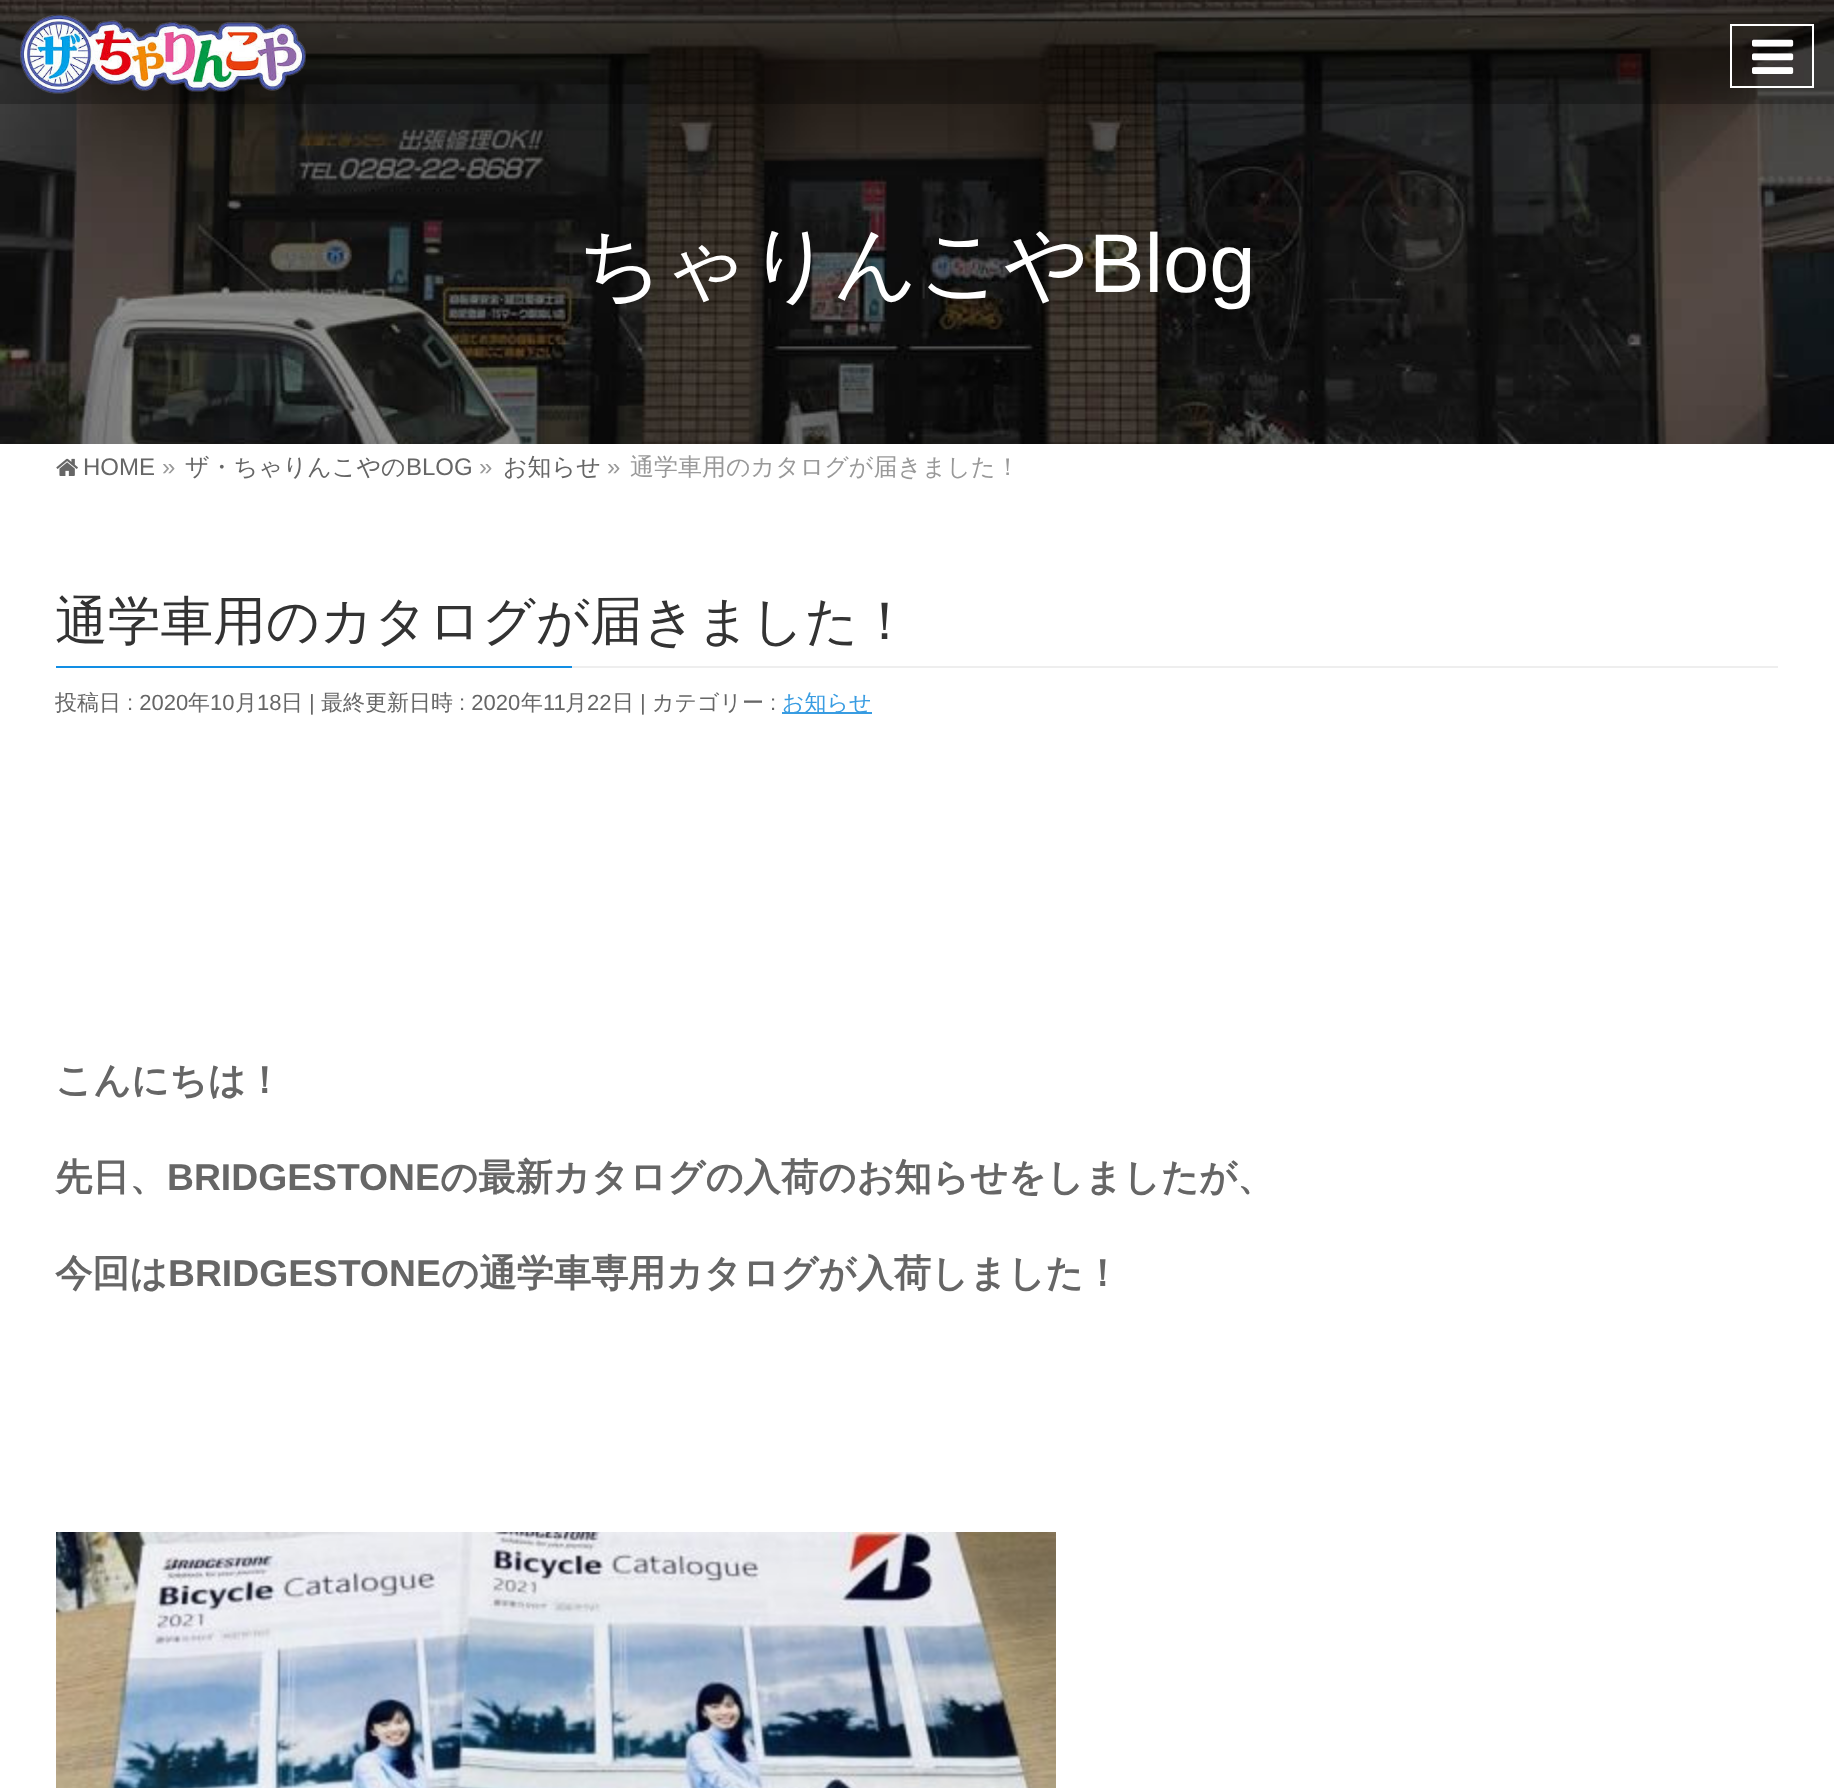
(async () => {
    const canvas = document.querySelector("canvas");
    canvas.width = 1834;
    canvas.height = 1788;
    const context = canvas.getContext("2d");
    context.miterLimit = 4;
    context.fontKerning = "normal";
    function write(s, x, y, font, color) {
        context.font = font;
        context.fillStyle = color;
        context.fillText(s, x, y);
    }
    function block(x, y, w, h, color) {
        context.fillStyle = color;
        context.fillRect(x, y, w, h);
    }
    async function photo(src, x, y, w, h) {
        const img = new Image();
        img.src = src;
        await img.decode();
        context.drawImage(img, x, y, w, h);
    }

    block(0, 0, 1834, 1788, "rgb(255, 255, 255)");
    await photo("media/3.png", 0, 0, 1834, 444);
    block(0, 0, 1834, 104, "rgba(0, 0, 0, 0.25)");
    await photo("media/1.png", 20, 14, 286, 80);
    context.strokeStyle = "rgb(255, 255, 255)";
    context.lineWidth = 2;
    context.strokeRect(1731, 25, 82, 62);
    await photo("media/2.png", 1752, 39, 42, 35);
    write("ちゃりんこや", 578, 292, "500 83.25px WenQuanYi Zen Hei", "rgb(255, 255, 255)");
    write("Blog", 1089, 292, "83.25px Liberation Sans", "rgb(255, 255, 255)");
    await photo("media/4.png", 56, 458, 22, 18);
    write("HOME", 83, 475, "24px Liberation Sans", "rgb(102, 102, 102)");
    write("»", 162, 475, "24px Liberation Sans", "rgb(153, 153, 153)");
    write("ザ・ちゃりんこやの", 185, 475, "500 24px WenQuanYi Zen Hei", "rgb(102, 102, 102)");
    write("BLOG", 406, 475, "24px Liberation Sans", "rgb(102, 102, 102)");
    write("»", 479, 475, "24px Liberation Sans", "rgb(153, 153, 153)");
    write("お知らせ", 503, 475, "500 24px WenQuanYi Zen Hei", "rgb(102, 102, 102)");
    write("»", 607, 475, "24px Liberation Sans", "rgb(153, 153, 153)");
    write("通学車用のカタログが届きました！", 630, 475, "500 24px WenQuanYi Zen Hei", "rgb(153, 153, 153)");
    block(572, 666, 1206, 2, "rgb(238, 238, 238)");
    write("通学車用のカタログが届きました！", 55, 639, "500 52.75px WenQuanYi Zen Hei", "rgb(51, 51, 51)");
    block(56, 666, 516, 2, "rgb(18, 142, 228)");
    write("投稿日", 55, 710, "500 22px WenQuanYi Zen Hei", "rgb(102, 102, 102)");
    write(": 2020", 127, 710, "22px Liberation Sans", "rgb(102, 102, 102)");
    write("年", 188, 710, "500 22px WenQuanYi Zen Hei", "rgb(102, 102, 102)");
    write("10", 210, 710, "22px Liberation Sans", "rgb(102, 102, 102)");
    write("月", 235, 710, "500 22px WenQuanYi Zen Hei", "rgb(102, 102, 102)");
    write("18", 257, 710, "22px Liberation Sans", "rgb(102, 102, 102)");
    write("日", 281, 710, "500 22px WenQuanYi Zen Hei", "rgb(102, 102, 102)");
    write("|", 309, 710, "22px Liberation Sans", "rgb(102, 102, 102)");
    write("最終更新日時", 321, 710, "500 22px WenQuanYi Zen Hei", "rgb(102, 102, 102)");
    write(": 2020", 459, 710, "22px Liberation Sans", "rgb(102, 102, 102)");
    write("年", 521, 710, "500 22px WenQuanYi Zen Hei", "rgb(102, 102, 102)");
    write("11", 543, 710, "22px Liberation Sans", "rgb(102, 102, 102)");
    write("月", 565, 710, "500 22px WenQuanYi Zen Hei", "rgb(102, 102, 102)");
    write("22", 587, 710, "22px Liberation Sans", "rgb(102, 102, 102)");
    write("日", 612, 710, "500 22px WenQuanYi Zen Hei", "rgb(102, 102, 102)");
    write("|", 640, 710, "22px Liberation Sans", "rgb(102, 102, 102)");
    write("カテゴリー", 652, 710, "500 22px WenQuanYi Zen Hei", "rgb(102, 102, 102)");
    write(":", 770, 710, "22px Liberation Sans", "rgb(102, 102, 102)");
    block(782, 712, 90, 2, "rgb(56, 156, 226)");
    write("お知らせ", 782, 710, "500 22px WenQuanYi Zen Hei", "rgb(56, 156, 226)");
    write("こんにちは！", 55, 1093, "bold 37.3px WenQuanYi Zen Hei", "rgb(102, 102, 102)");
    write("先日、", 55, 1190, "bold 37.3px WenQuanYi Zen Hei", "rgb(102, 102, 102)");
    write("BRIDGESTONE", 167, 1190, "bold 37.3px Liberation Sans", "rgb(102, 102, 102)");
    write("の最新カタログの入荷のお知らせをしましたが、", 440, 1190, "bold 37.3px WenQuanYi Zen Hei", "rgb(102, 102, 102)");
    write("今回は", 55, 1286, "bold 37.3px WenQuanYi Zen Hei", "rgb(102, 102, 102)");
    write("BRIDGESTONE", 168, 1286, "bold 37.3px Liberation Sans", "rgb(102, 102, 102)");
    write("の通学車専用カタログが入荷しました！", 441, 1286, "bold 37.3px WenQuanYi Zen Hei", "rgb(102, 102, 102)");
    await photo("media/5.png", 56, 1532, 1000, 256);
})();
